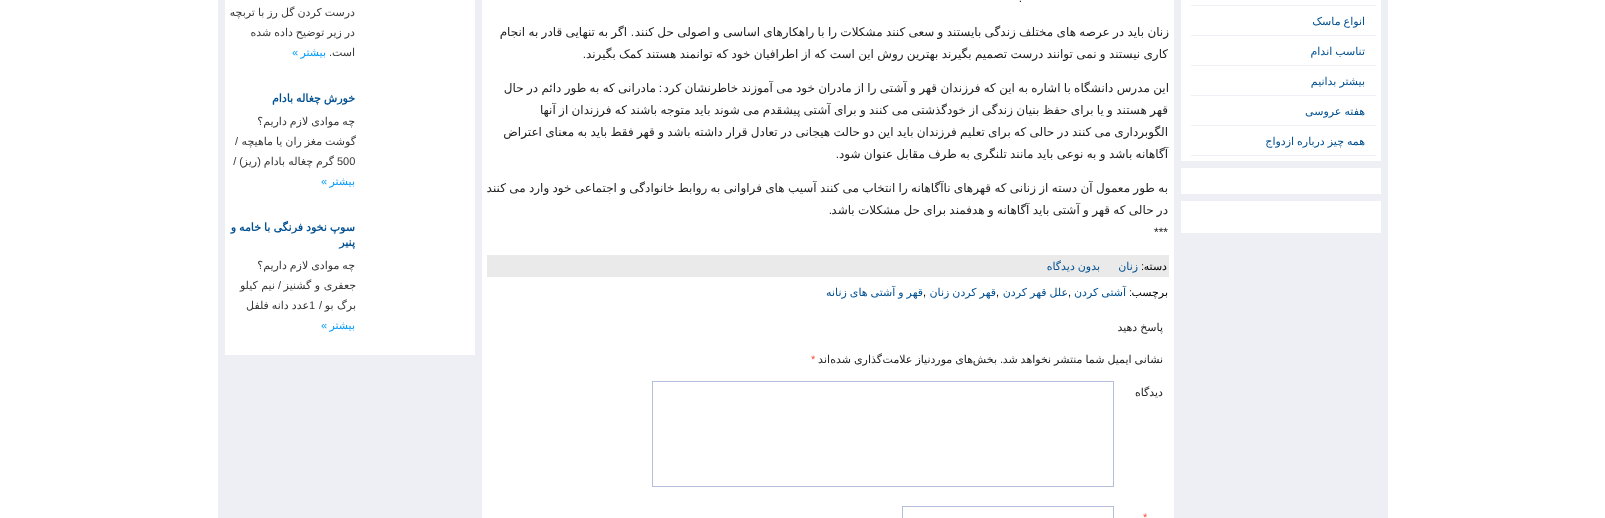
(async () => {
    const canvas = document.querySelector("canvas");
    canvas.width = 1605;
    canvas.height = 518;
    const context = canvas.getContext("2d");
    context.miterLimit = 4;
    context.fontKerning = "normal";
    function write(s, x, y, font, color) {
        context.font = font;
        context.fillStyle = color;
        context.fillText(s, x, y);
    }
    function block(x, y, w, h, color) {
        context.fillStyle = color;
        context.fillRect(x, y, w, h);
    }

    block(0, 0, 1605, 518, "rgb(255, 255, 255)");
    block(218, 0, 1170, 518, "rgb(238, 238, 245)");
    block(1181, 0, 200, 161, "rgb(255, 255, 255)");
    block(1191, 5, 185, 1, "rgb(239, 239, 246)");
    block(1191, 35, 185, 1, "rgb(239, 239, 246)");
    context.wordSpacing = "-0.5px";
    context.direction = "rtl";
    write("انواع ماسک", 1365, 25, "11px DejaVu Sans", "rgb(0, 79, 144)");
    block(1191, 65, 185, 1, "rgb(239, 239, 246)");
    write("تناسب اندام", 1365, 55, "11px DejaVu Sans", "rgb(0, 79, 144)");
    block(1191, 95, 185, 1, "rgb(239, 239, 246)");
    write("بیشتر بدانیم", 1365, 85, "11px DejaVu Sans", "rgb(0, 79, 144)");
    block(1191, 125, 185, 1, "rgb(239, 239, 246)");
    write("هفته عروسی", 1365, 115, "11px DejaVu Sans", "rgb(0, 79, 144)");
    block(1191, 155, 185, 1, "rgb(239, 239, 246)");
    write("همه چیز درباره ازدواج", 1365, 145, "11px DejaVu Sans", "rgb(0, 79, 144)");
    block(1181, 168, 200, 26, "rgb(255, 255, 255)");
    block(1181, 201, 200, 32, "rgb(255, 255, 255)");
    block(482, 0, 692, 518, "rgb(255, 255, 255)");
    context.wordSpacing = "0px";
    write(".", 1022, 2, "12px Liberation Sans", "rgb(34, 34, 34)");
    context.save();
    context.beginPath();
    context.rect(482, 0, 692, 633);
    context.clip();
    context.wordSpacing = "-0.5px";
    write("زنان باید در عرصه های مختلف زندگی بایستند و سعی کنند مشکلات را با راهکارهای اساسی و اصولی حل کنند", 1169, 36, "12px DejaVu Sans", "rgb(34, 34, 34)");
    context.restore();
    write(".", 634, 36, "12px Liberation Sans", "rgb(34, 34, 34)");
    context.wordSpacing = "-0.5px";
    write("اگر به تنهایی قادر به انجام", 627, 36, "12px DejaVu Sans", "rgb(34, 34, 34)");
    context.save();
    context.beginPath();
    context.rect(482, 0, 692, 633);
    context.clip();
    write("کاری نیستند و نمی توانند درست تصمیم بگیرند بهترین روش این است که از اطرافیان خود که توانمند هستند کمک بگیرند", 1168, 58, "12px DejaVu Sans", "rgb(34, 34, 34)");
    context.restore();
    context.wordSpacing = "0px";
    write(".", 586, 58, "12px Liberation Sans", "rgb(34, 34, 34)");
    context.wordSpacing = "-0.5px";
    write("این مدرس دانشگاه با اشاره به این که فرزندان قهر و آشتی را از مادران خود می آموزند خاطرنشان کرد", 1169, 92, "12px DejaVu Sans", "rgb(34, 34, 34)");
    context.wordSpacing = "0px";
    write(":", 662, 92, "12px Liberation Sans", "rgb(34, 34, 34)");
    context.wordSpacing = "-0.5px";
    write("مادرانی که به طور دائم در حال", 656, 92, "12px DejaVu Sans", "rgb(34, 34, 34)");
    write("قهر هستند و یا برای حفظ بنیان زندگی از خودگذشتی می کنند و برای آشتی پیشقدم می شوند باید متوجه باشند که فرزندان از آنها", 1168, 114, "12px DejaVu Sans", "rgb(34, 34, 34)");
    write("الگوبرداری می کنند در حالی که برای تعلیم فرزندان باید این دو حالت هیجانی در تعادل قرار داشته باشد و قهر فقط باید به معنای اعتراض", 1168, 136, "12px DejaVu Sans", "rgb(34, 34, 34)");
    write("آگاهانه باشد و به نوعی باید مانند تلنگری به طرف مقابل عنوان شود", 1168, 158, "12px DejaVu Sans", "rgb(34, 34, 34)");
    context.wordSpacing = "0px";
    write(".", 839, 158, "12px Liberation Sans", "rgb(34, 34, 34)");
    context.save();
    context.beginPath();
    context.rect(482, 0, 692, 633);
    context.clip();
    context.wordSpacing = "-0.5px";
    write("به طور معمول آن دسته از زنانی که قهرهای ناآگاهانه را انتخاب می کنند آسیب های فراوانی به روابط خانوادگی و اجتماعی خود وارد می کنند", 1168, 192, "12px DejaVu Sans", "rgb(34, 34, 34)");
    context.restore();
    context.wordSpacing = "-0.5px";
    write("در حالی که قهر و آشتی باید آگاهانه و هدفمند برای حل مشکلات باشد", 1168, 214, "12px DejaVu Sans", "rgb(34, 34, 34)");
    context.wordSpacing = "0px";
    write(".", 832, 214, "12px Liberation Sans", "rgb(34, 34, 34)");
    context.direction = "ltr";
    write("***", 1154, 236, "12px Liberation Sans", "rgb(34, 34, 34)");
    block(487, 255, 682, 22, "rgb(234, 234, 234)");
    context.direction = "rtl";
    write("دسته", 1167, 270, "11px DejaVu Sans", "rgb(0, 0, 0)");
    write(":", 1144, 270, "11px Liberation Sans", "rgb(0, 0, 0)");
    write("زنان", 1138, 270, "11px DejaVu Sans", "rgb(0, 79, 144)");
    context.wordSpacing = "-0.5px";
    write("بدون دیدگاه", 1100, 270, "11px DejaVu Sans", "rgb(0, 79, 144)");
    context.wordSpacing = "0px";
    write("برچسب", 1168, 296, "11px DejaVu Sans", "rgb(0, 0, 0)");
    write(":", 1132, 296, "11px Liberation Sans", "rgb(0, 0, 0)");
    context.wordSpacing = "-0.5px";
    write("آشتی کردن", 1126, 296, "11px DejaVu Sans", "rgb(0, 79, 144)");
    write("علل قهر کردن", 1068, 296, "11px DejaVu Sans", "rgb(0, 79, 144)");
    write("قهر کردن زنان", 996, 296, "11px DejaVu Sans", "rgb(0, 79, 144)");
    context.wordSpacing = "0px";
    context.direction = "ltr";
    write(",", 923, 296, "11px Liberation Sans", "rgb(0, 0, 0)");
    context.wordSpacing = "-0.5px";
    context.direction = "rtl";
    write("قهر و آشتی های زنانه", 923, 296, "11px DejaVu Sans", "rgb(0, 79, 144)");
    context.wordSpacing = "0px";
    context.direction = "ltr";
    write(",", 1068, 296, "11px Liberation Sans", "rgb(0, 0, 0)");
    write(",", 996, 296, "11px Liberation Sans", "rgb(0, 0, 0)");
    context.wordSpacing = "-0.5px";
    context.direction = "rtl";
    write("پاسخ دهید", 1163, 331, "11px DejaVu Sans", "rgb(34, 34, 34)");
    write("نشانی ایمیل شما منتشر نخواهد شد", 1163, 363, "11px DejaVu Sans", "rgb(34, 34, 34)");
    context.wordSpacing = "0px";
    write(".", 1003, 363, "11px Liberation Sans", "rgb(34, 34, 34)");
    write("بخش", 997, 363, "11px DejaVu Sans", "rgb(34, 34, 34)");
    context.wordSpacing = "-0.5px";
    write("گذاری شده", 882, 363, "11px DejaVu Sans", "rgb(34, 34, 34)");
    write("های موردنیاز علامت", 973, 363, "11px DejaVu Sans", "rgb(34, 34, 34)");
    context.wordSpacing = "0px";
    write("اند", 830, 363, "11px DejaVu Sans", "rgb(34, 34, 34)");
    context.direction = "ltr";
    write("*", 811, 363, "11px Liberation Sans", "rgb(255, 75, 51)");
    context.direction = "rtl";
    write("دیدگاه", 1163, 396, "11px DejaVu Sans", "rgb(34, 34, 34)");
    context.strokeStyle = "rgb(181, 190, 221)";
    context.strokeRect(652.5, 381.5, 461, 105);
    context.direction = "ltr";
    write("*", 1143, 521, "11px Liberation Sans", "rgb(255, 75, 51)");
    context.strokeRect(902.5, 506.5, 211, 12);
    block(225, 0, 250, 355, "rgb(255, 255, 255)");
    context.wordSpacing = "-0.5px";
    context.direction = "rtl";
    write("درست کردن گل رز با تربچه", 355, 16, "11px DejaVu Sans", "rgb(56, 56, 56)");
    write("در زیر توضیح داده شده", 355, 36, "11px DejaVu Sans", "rgb(56, 56, 56)");
    context.wordSpacing = "0px";
    write("است", 355, 56, "11px DejaVu Sans", "rgb(56, 56, 56)");
    write(".", 332, 56, "11px Liberation Sans", "rgb(56, 56, 56)");
    write("بیشتر", 326, 56, "11px DejaVu Sans", "rgb(0, 156, 255)");
    write("»", 298, 56, "11px Liberation Sans", "rgb(0, 156, 255)");
    context.wordSpacing = "-0.5px";
    write("خورش چغاله بادام", 355, 102, "bold 11px DejaVu Sans", "rgb(0, 79, 144)");
    write("چه موادی لازم داریم؟", 355, 125, "11px DejaVu Sans", "rgb(56, 56, 56)");
    write("گوشت مغز ران یا ماهیچه", 356, 145, "11px DejaVu Sans", "rgb(56, 56, 56)");
    context.wordSpacing = "0px";
    write("/", 238, 145, "11px Liberation Sans", "rgb(56, 56, 56)");
    context.direction = "ltr";
    write("500", 337, 165, "11px Liberation Sans", "rgb(56, 56, 56)");
    context.direction = "rtl";
    write("گرم", 334, 165, "11px DejaVu Sans", "rgb(56, 56, 56)");
    write("چغاله", 313, 165, "11px DejaVu Sans", "rgb(56, 56, 56)");
    write("بادام", 285, 165, "11px DejaVu Sans", "rgb(56, 56, 56)");
    write("(", 261, 165, "11px Liberation Sans", "rgb(56, 56, 56)");
    write(") /", 243, 165, "11px Liberation Sans", "rgb(56, 56, 56)");
    write("ریز", 257, 165, "11px DejaVu Sans", "rgb(56, 56, 56)");
    write("بیشتر", 355, 185, "11px DejaVu Sans", "rgb(0, 156, 255)");
    write("»", 327, 185, "11px Liberation Sans", "rgb(0, 156, 255)");
    context.wordSpacing = "-0.5px";
    write("سوپ نخود فرنگی با خامه و", 355, 231, "bold 11px DejaVu Sans", "rgb(0, 79, 144)");
    context.wordSpacing = "0px";
    write("پنیر", 355, 246, "bold 11px DejaVu Sans", "rgb(0, 79, 144)");
    context.wordSpacing = "-0.5px";
    write("چه موادی لازم داریم؟", 355, 269, "11px DejaVu Sans", "rgb(56, 56, 56)");
    context.wordSpacing = "0px";
    write("جعفری و گشنیز", 356, 289, "11px DejaVu Sans", "rgb(56, 56, 56)");
    write("/", 281, 289, "11px Liberation Sans", "rgb(56, 56, 56)");
    write("نیم کیلو", 275, 289, "11px DejaVu Sans", "rgb(56, 56, 56)");
    write("برگ بو", 356, 309, "11px DejaVu Sans", "rgb(56, 56, 56)");
    write("/", 322, 309, "11px Liberation Sans", "rgb(56, 56, 56)");
    context.direction = "ltr";
    write("1", 309, 309, "11px Liberation Sans", "rgb(56, 56, 56)");
    context.wordSpacing = "-0.5px";
    context.direction = "rtl";
    write("عدد دانه فلفل", 309, 309, "11px DejaVu Sans", "rgb(56, 56, 56)");
    context.wordSpacing = "0px";
    write("بیشتر", 355, 329, "11px DejaVu Sans", "rgb(0, 156, 255)");
    write("»", 327, 329, "11px Liberation Sans", "rgb(0, 156, 255)");
})();
